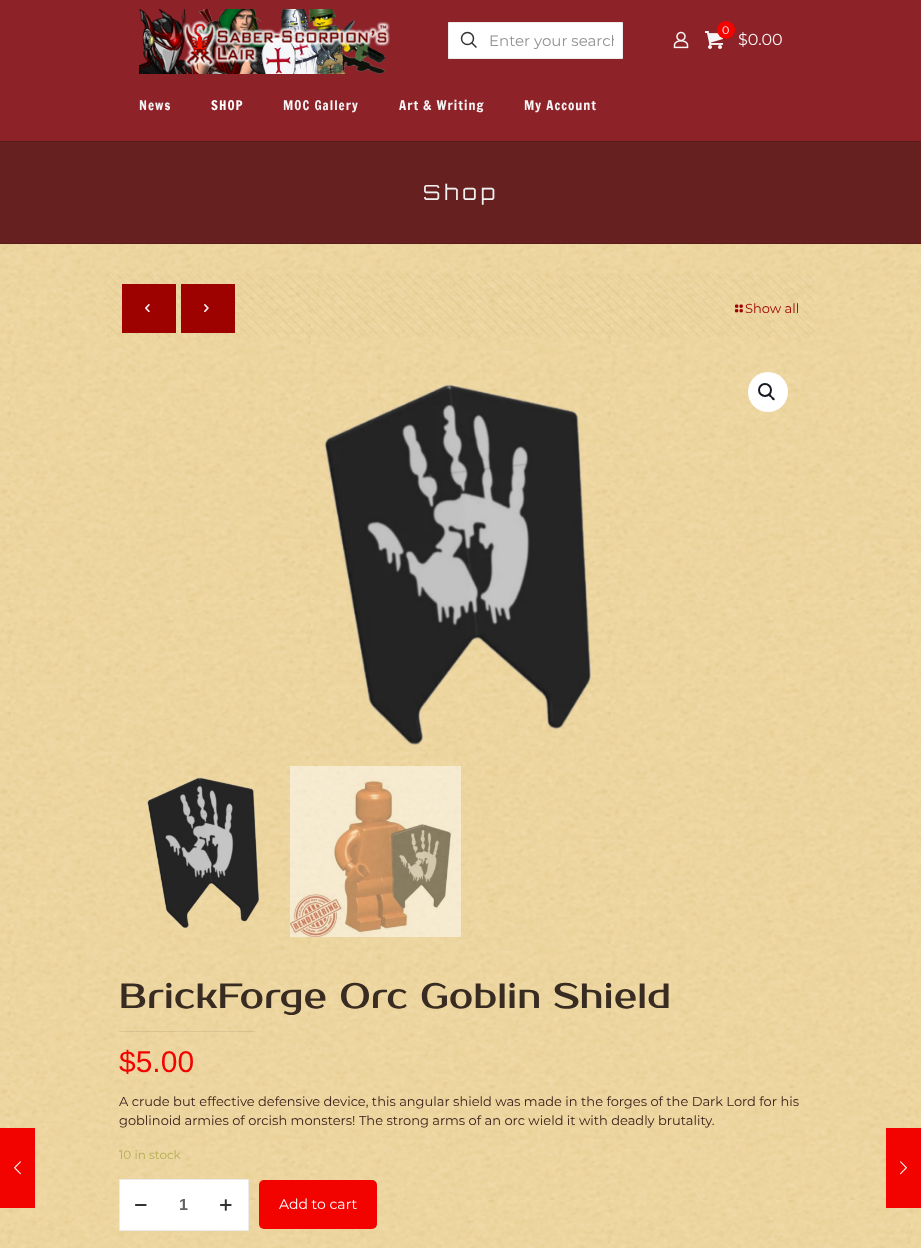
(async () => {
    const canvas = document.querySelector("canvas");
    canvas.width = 921;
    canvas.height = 1248;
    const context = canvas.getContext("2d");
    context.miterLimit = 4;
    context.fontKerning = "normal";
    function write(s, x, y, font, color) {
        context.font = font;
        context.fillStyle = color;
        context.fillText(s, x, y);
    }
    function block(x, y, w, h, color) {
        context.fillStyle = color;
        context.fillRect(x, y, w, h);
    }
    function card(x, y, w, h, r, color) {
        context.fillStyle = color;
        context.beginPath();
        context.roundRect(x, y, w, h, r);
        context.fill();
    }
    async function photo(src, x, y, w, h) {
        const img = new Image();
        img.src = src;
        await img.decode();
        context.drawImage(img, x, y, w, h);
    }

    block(0, 0, 921, 1248, "rgb(255, 255, 255)");
    await photo("media/1.png", 0, 244, 921, 1004);
    block(0, 1128, 35, 80, "rgb(243, 3, 0)");
    await photo("media/2.png", 14, 1161, 7, 14);
    block(0, 0, 921, 141, "rgb(142, 34, 41)");
    await photo("media/3.png", 139, 9, 251, 65);
    context.fillStyle = "rgb(255, 255, 255)";
    context.beginPath();
    context.rect(448.5, 22.5, 174, 36);
    context.fill();
    context.strokeStyle = "rgb(235, 235, 235)";
    context.stroke();
    context.beginPath();
    context.arc(467.5, 38.5, 6, 0, Math.PI * 2);
    context.strokeStyle = "rgb(51, 51, 51)";
    context.lineWidth = 1.5;
    context.stroke();
    context.beginPath();
    context.moveTo(471.5, 42.5);
    context.lineTo(476.5, 47.5);
    context.stroke();
    context.save();
    context.beginPath();
    context.rect(489, 31, 125, 19);
    context.clip();
    write("Enter your search", 489, 46, "15px Montserrat", "rgb(146, 146, 146)");
    context.restore();
    await photo("media/4.png", 673, 31, 16, 18);
    await photo("media/5.png", 705, 31, 18, 18);
    context.fillStyle = "rgb(243, 3, 0)";
    context.beginPath();
    context.arc(726, 30, 9, 0, Math.PI * 2);
    context.fill();
    write("0", 722, 34, "11px Montserrat", "rgb(255, 255, 255)");
    write("$0.00", 738, 45, "16px Montserrat", "rgb(246, 244, 244)");
    context.letterSpacing = "1px";
    write("News", 139, 110, "13px Francois One", "rgb(246, 244, 244)");
    write("SHOP", 211, 110, "13px Francois One", "rgb(255, 255, 255)");
    write("MOC Gallery", 283, 110, "13px Francois One", "rgb(246, 244, 244)");
    write("Art & Writing", 399, 110, "13px Francois One", "rgb(246, 244, 244)");
    write("My Account", 524, 110, "13px Francois One", "rgb(246, 244, 244)");
    block(0, 142, 921, 101, "rgb(102, 32, 32)");
    block(0, 141, 921, 1, "rgb(89, 27, 27)");
    block(0, 243, 921, 1, "rgb(89, 27, 27)");
    context.letterSpacing = "4px";
    write("Shop", 423, 200, "21px Orbitron", "rgb(240, 240, 240)");
    await photo("media/6.png", 107, 274, 708, 63);
    block(122, 284, 54, 49, "rgb(158, 2, 0)");
    await photo("media/7.png", 145, 304, 5, 9);
    block(181, 284, 54, 49, "rgb(158, 2, 0)");
    await photo("media/8.png", 204, 304, 5, 9);
    await photo("media/9.png", 735, 304, 8, 9);
    context.letterSpacing = "0px";
    write("Show all", 745, 313, "13px Montserrat", "rgb(158, 0, 2)");
    await photo("media/10.png", 324, 384, 267, 361);
    context.fillStyle = "rgb(255, 255, 255)";
    context.beginPath();
    context.arc(768, 392, 20, 0, Math.PI * 2);
    context.fill();
    context.beginPath();
    context.arc(765, 390, 6, 0, Math.PI * 2);
    context.strokeStyle = "rgb(22, 25, 34)";
    context.lineWidth = 2;
    context.stroke();
    context.fillStyle = "rgb(22, 25, 34)";
    context.beginPath();
    context.moveTo(768.5, 394);
    context.bezierCurveTo(770, 393, 771.5, 395.5, 772, 396.5);
    context.bezierCurveTo(773, 397, 775.5, 398.5, 774.5, 400);
    context.bezierCurveTo(773, 401, 771.5, 398.5, 771, 397.5);
    context.bezierCurveTo(770, 397, 767.5, 395.5, 768.5, 394);
    context.closePath();
    context.fill();
    await photo("media/11.png", 147, 777, 112, 152);
    await photo("media/12.png", 290, 766, 171, 171);
    write("BrickForge Orc Goblin Shield", 119, 1008, "35px Prosto One", "rgb(56, 43, 33)");
    block(119, 1031, 136, 1, "rgba(0, 0, 0, 0.08)");
    write("$5.00", 119, 1072, "30px Liberation Sans", "rgb(243, 3, 0)");
    write("A crude but effective defensive device, this angular shield was made in the forges of the Dark Lord for his", 119, 1106, "13px Montserrat", "rgb(53, 28, 23)");
    write("goblinoid armies of orcish monsters! The strong arms of an orc wield it with deadly brutality.", 119, 1125, "13px Montserrat", "rgb(53, 28, 23)");
    write("10 in stock", 119, 1159, "12px Montserrat", "rgb(179, 175, 84)");
    context.fillStyle = "rgb(255, 255, 255)";
    context.beginPath();
    context.rect(119.5, 1179.5, 129, 51);
    context.fill();
    context.strokeStyle = "rgb(235, 235, 235)";
    context.lineWidth = 1;
    context.stroke();
    await photo("media/13.png", 135, 1204, 12, 2);
    write("1", 179, 1210, "bold 16px Liberation Sans", "rgb(98, 98, 98)");
    await photo("media/14.png", 220, 1199, 12, 12);
    card(259, 1180, 118, 49, 5, "rgb(243, 3, 0)");
    write("Add to cart", 279, 1209, "14px Montserrat", "rgb(255, 255, 255)");
    block(886, 1128, 35, 80, "rgb(243, 3, 0)");
    await photo("media/15.png", 900, 1161, 7, 14);
})();
